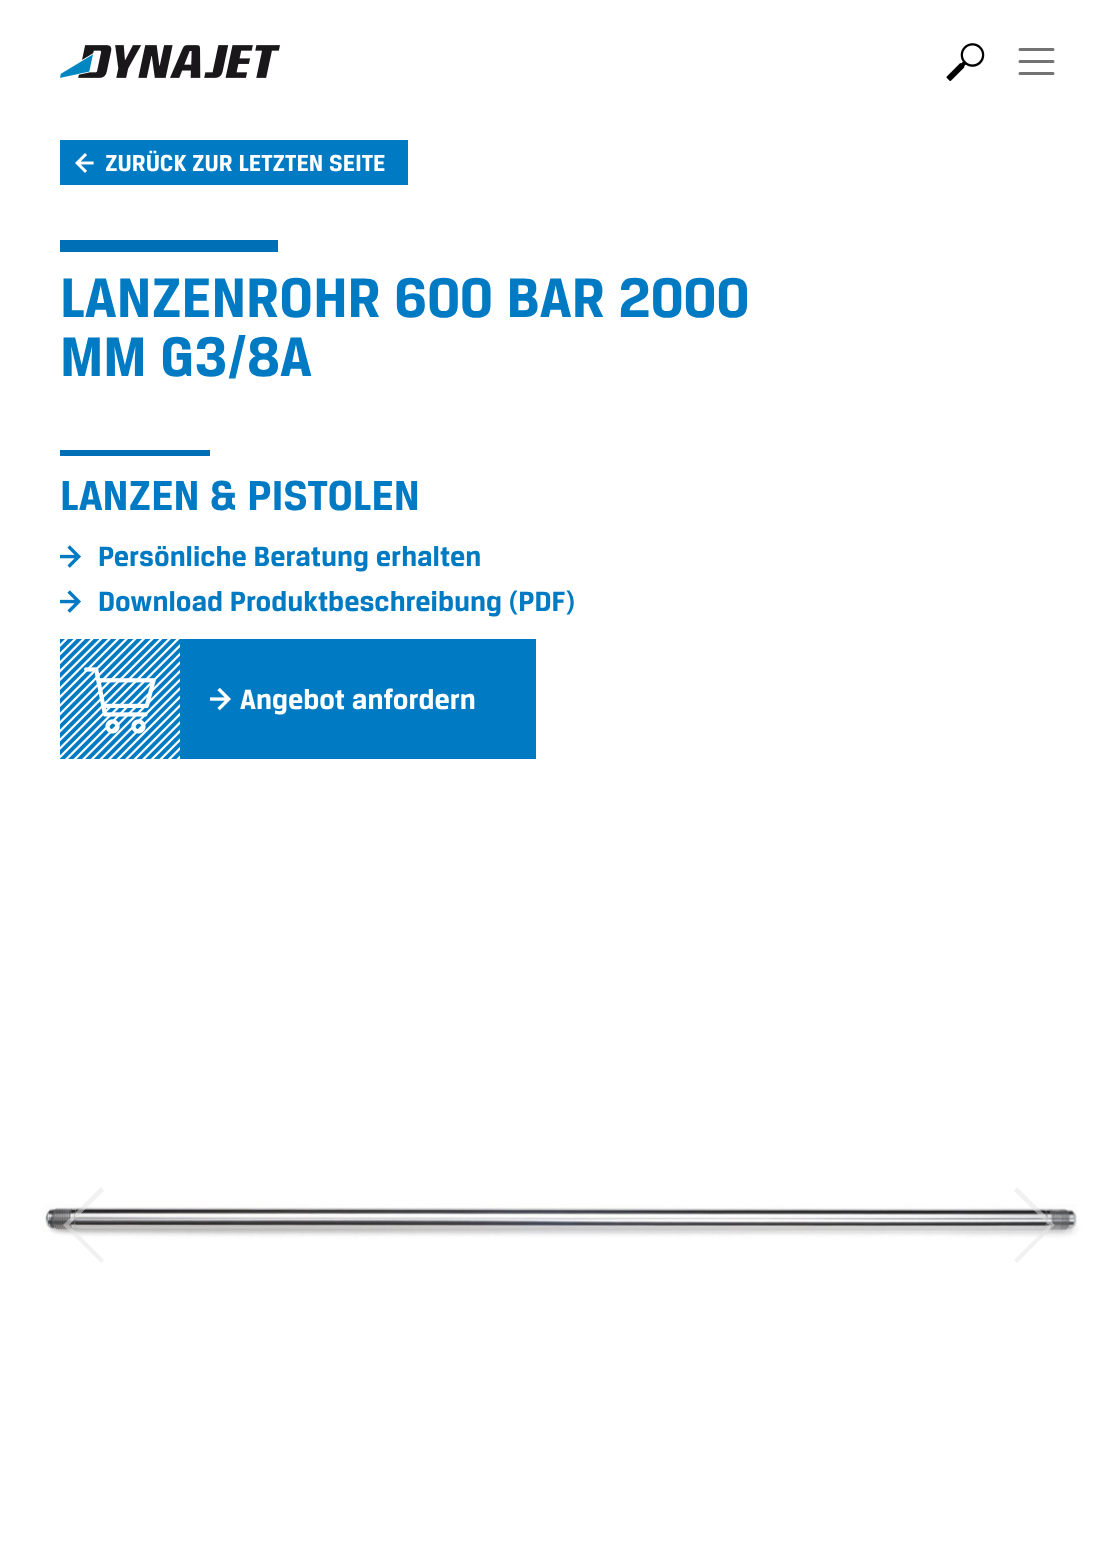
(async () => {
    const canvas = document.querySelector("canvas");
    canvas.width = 1118;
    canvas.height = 1564;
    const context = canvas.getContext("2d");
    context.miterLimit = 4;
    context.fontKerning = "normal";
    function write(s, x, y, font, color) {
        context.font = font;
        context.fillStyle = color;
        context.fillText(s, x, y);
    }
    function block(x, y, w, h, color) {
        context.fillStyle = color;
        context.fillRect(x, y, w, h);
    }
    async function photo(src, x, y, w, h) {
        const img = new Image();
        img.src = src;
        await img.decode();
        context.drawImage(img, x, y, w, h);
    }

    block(0, 0, 1118, 1564, "rgb(255, 255, 255)");
    await photo("media/1.png", 60, 45, 220, 33);
    await photo("media/2.png", 946, 43, 39, 38);
    context.beginPath();
    context.moveTo(1020, 49.5);
    context.lineTo(1053, 49.5);
    context.moveTo(1020, 61.5);
    context.lineTo(1053, 61.5);
    context.moveTo(1020, 73.5);
    context.lineTo(1053, 73.5);
    context.strokeStyle = "rgb(115, 115, 115)";
    context.lineWidth = 3;
    context.lineCap = "round";
    context.stroke();
    block(60, 140, 348, 45, "rgb(0, 122, 194)");
    await photo("media/3.png", 75, 153, 19, 20);
    write("ZURÜCK ZUR LETZTEN SEITE", 105, 171, "bold 22.5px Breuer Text", "rgb(255, 255, 255)");
    block(60, 240, 218, 12, "rgb(0, 111, 182)");
    write("LANZENROHR 600 BAR 2000", 60, 317, "bold 54px Breuer Text", "rgb(0, 122, 194)");
    write("MM G3/8A", 60, 376, "bold 54px Breuer Text", "rgb(0, 122, 194)");
    block(60, 450, 150, 6, "rgb(0, 111, 182)");
    write("LANZEN & PISTOLEN", 60, 510, "bold 40.5px Breuer Text", "rgb(0, 122, 194)");
    await photo("media/4.png", 60, 545, 21, 23);
    write("Persönliche Beratung erhalten", 98, 566, "bold 27px Breuer Text", "rgb(0, 122, 194)");
    await photo("media/4.png", 60, 590, 21, 23);
    write("Download Produktbeschreibung (PDF)", 98, 611, "bold 27px Breuer Text", "rgb(0, 122, 194)");
    block(60, 639, 476, 120, "rgb(0, 122, 194)");
    await photo("media/5.png", 60, 639, 120, 120);
    await photo("media/6.png", 84, 667, 72, 67);
    await photo("media/7.png", 210, 687, 21, 24);
    write("Angebot anfordern", 240, 709, "bold 27px Breuer Text", "rgb(255, 255, 255)");
    await photo("media/8.png", 0, 855, 1118, 709);
    context.fillStyle = "rgba(228, 228, 228, 0.5)";
    context.beginPath();
    context.moveTo(63, 1225);
    context.lineTo(101, 1187);
    context.lineTo(104, 1191);
    context.lineTo(69, 1225);
    context.lineTo(104, 1260);
    context.lineTo(101, 1263);
    context.closePath();
    context.fill();
    context.beginPath();
    context.moveTo(1014, 1260);
    context.lineTo(1049, 1225);
    context.lineTo(1014, 1191);
    context.lineTo(1017, 1187);
    context.lineTo(1055, 1225);
    context.lineTo(1017, 1263);
    context.closePath();
    context.fill();
})();
